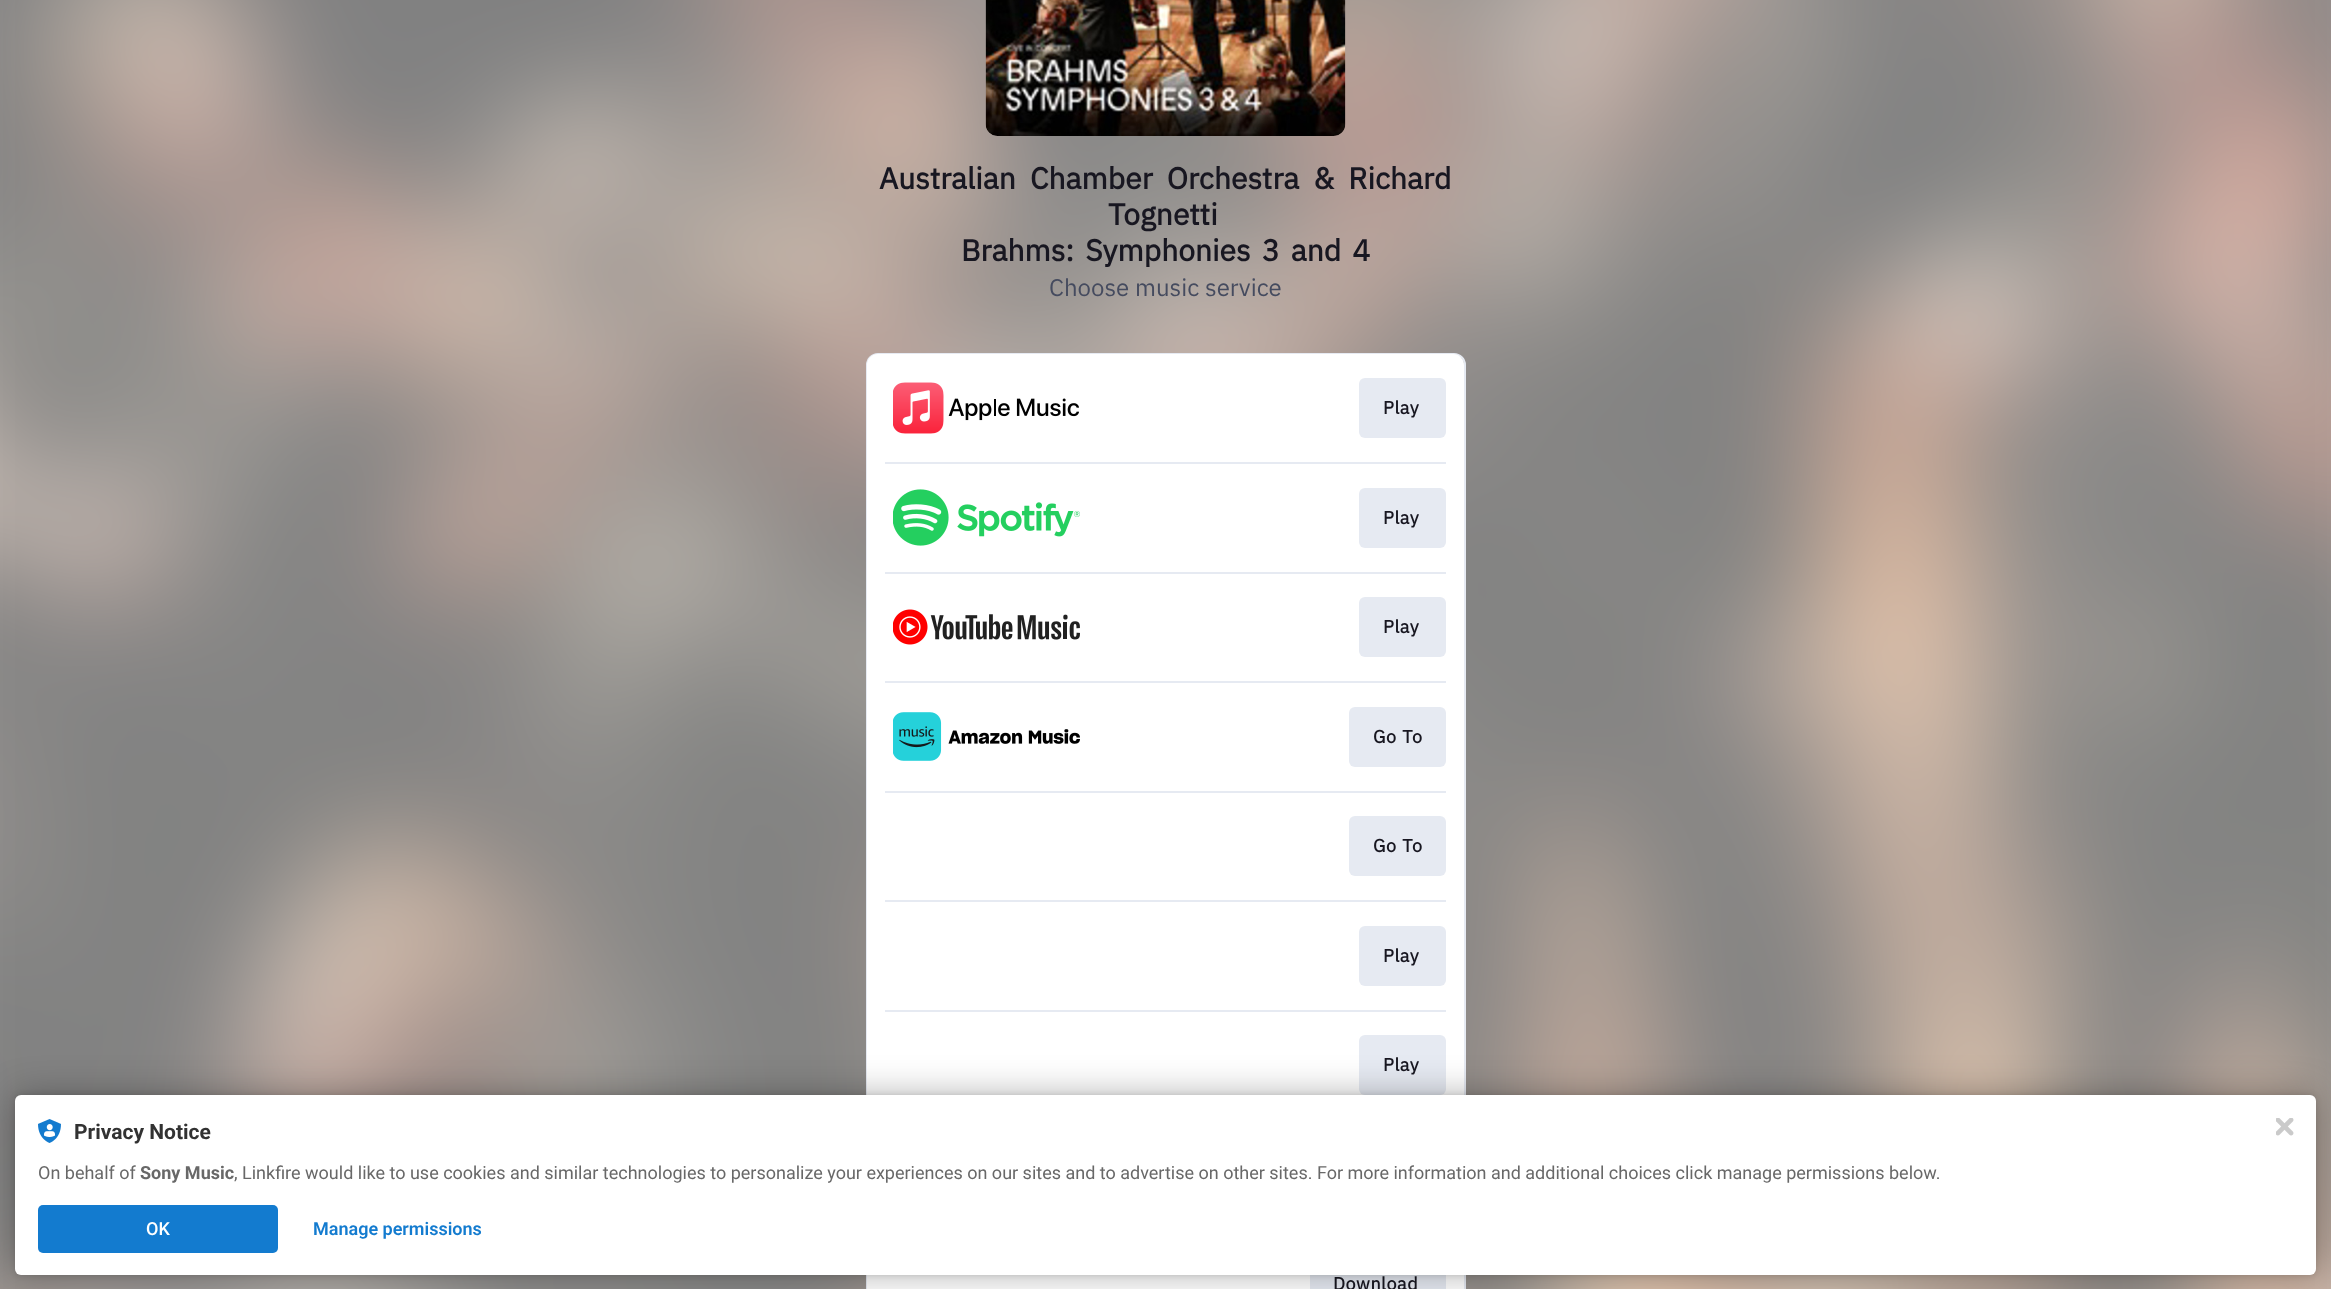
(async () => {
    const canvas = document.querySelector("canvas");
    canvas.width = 2331;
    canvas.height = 1289;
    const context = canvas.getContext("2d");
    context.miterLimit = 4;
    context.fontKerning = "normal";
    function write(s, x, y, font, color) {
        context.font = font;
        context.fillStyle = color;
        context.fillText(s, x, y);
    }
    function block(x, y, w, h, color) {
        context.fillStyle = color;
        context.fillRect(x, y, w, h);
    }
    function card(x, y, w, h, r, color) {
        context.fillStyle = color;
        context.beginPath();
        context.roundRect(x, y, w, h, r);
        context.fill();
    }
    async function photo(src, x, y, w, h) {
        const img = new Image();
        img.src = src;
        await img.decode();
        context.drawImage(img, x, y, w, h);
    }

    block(0, 0, 2331, 1289, "rgb(255, 255, 255)");
    await photo("media/1.png", 0, 0, 2331, 1289);
    await photo("media/2.png", 985, 0, 361, 136);
    context.wordSpacing = "7px";
    write("Australian Chamber Orchestra & Richard", 879, 189, "bold 30px IBM Plex Sans", "rgb(24, 23, 33)");
    context.wordSpacing = "0px";
    write("Tognetti", 1108, 225, "bold 30px IBM Plex Sans", "rgb(24, 23, 33)");
    context.wordSpacing = "4px";
    write("Brahms: Symphonies 3 and 4", 961, 261, "bold 30px IBM Plex Sans", "rgb(24, 23, 33)");
    context.wordSpacing = "0px";
    write("Choose music service", 1049, 296, "24px IBM Plex Sans", "rgb(69, 75, 95)");
    context.beginPath();
    context.roundRect(867, 354, 598, 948, 11);
    context.strokeStyle = "rgb(230, 234, 242)";
    context.lineWidth = 2;
    context.stroke();
    card(867, 354, 597, 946, 11, "rgb(255, 255, 255)");
    await photo("media/3.png", 893, 382, 186, 52);
    card(1359, 378, 87, 60, 6, "rgb(230, 234, 242)");
    context.letterSpacing = "0.5px";
    write("Play", 1383, 414, "bold 18px IBM Plex Sans", "rgb(24, 23, 33)");
    block(885, 462, 561, 2, "rgb(230, 234, 242)");
    await photo("media/4.png", 893, 489, 187, 57);
    card(1359, 488, 87, 60, 6, "rgb(230, 234, 242)");
    write("Play", 1383, 524, "bold 18px IBM Plex Sans", "rgb(24, 23, 33)");
    block(885, 572, 561, 2, "rgb(230, 234, 242)");
    await photo("media/5.png", 893, 609, 187, 36);
    card(1359, 597, 87, 60, 6, "rgb(230, 234, 242)");
    write("Play", 1383, 633, "bold 18px IBM Plex Sans", "rgb(24, 23, 33)");
    block(885, 681, 561, 2, "rgb(230, 234, 242)");
    await photo("media/6.png", 893, 712, 187, 49);
    card(1349, 707, 97, 60, 6, "rgb(230, 234, 242)");
    context.wordSpacing = "1px";
    write("Go To", 1373, 743, "bold 18px IBM Plex Sans", "rgb(24, 23, 33)");
    block(885, 791, 561, 2, "rgb(230, 234, 242)");
    card(1349, 816, 97, 60, 6, "rgb(230, 234, 242)");
    write("Go To", 1373, 852, "bold 18px IBM Plex Sans", "rgb(24, 23, 33)");
    block(885, 900, 561, 2, "rgb(230, 234, 242)");
    card(1359, 926, 87, 60, 6, "rgb(230, 234, 242)");
    context.wordSpacing = "0px";
    write("Play", 1383, 962, "bold 18px IBM Plex Sans", "rgb(24, 23, 33)");
    block(885, 1010, 561, 2, "rgb(230, 234, 242)");
    card(1359, 1035, 87, 60, 6, "rgb(230, 234, 242)");
    write("Play", 1383, 1071, "bold 18px IBM Plex Sans", "rgb(24, 23, 33)");
    block(1310, 1275, 136, 14, "rgb(230, 234, 242)");
    write("Download", 1333, 1290, "bold 18px IBM Plex Sans", "rgb(24, 23, 33)");
    context.fillStyle = "rgba(0, 0, 0, 0.12)";
    context.filter = "blur(3px)";
    context.beginPath();
    context.roundRect(15, 1095, 2301, 180, 6);
    context.fill();
    context.filter = "none";
    context.fillStyle = "rgba(0, 0, 0, 0.3)";
    context.filter = "blur(18px)";
    context.beginPath();
    context.roundRect(15, 1095, 2301, 180, 6);
    context.fill();
    context.filter = "none";
    card(15, 1095, 2301, 180, 6, "rgb(255, 255, 255)");
    await photo("media/7.png", 38, 1119, 23, 24);
    context.letterSpacing = "0px";
    write("Privacy Notice", 74, 1139, "bold 21px Roboto", "rgb(50, 50, 50)");
    write("On behalf of", 38, 1179, "18px Roboto", "rgb(104, 104, 104)");
    write("Sony Music", 140, 1179, "bold 18px Roboto", "rgb(104, 104, 104)");
    write(", Linkfire would like to use cookies and similar technologies to personalize your experiences on our sites and to advertise on other sites. For more information and additional choices click manage permissions below.", 234, 1179, "18px Roboto", "rgb(104, 104, 104)");
    card(38, 1205, 240, 48, 5, "rgb(19, 123, 207)");
    write("OK", 146, 1235, "500 18px Roboto", "rgb(255, 255, 255)");
    write("Manage permissions", 313, 1235, "600 18px Roboto", "rgb(19, 123, 207)");
    await photo("media/8.png", 2276, 1118, 18, 18);
})();
